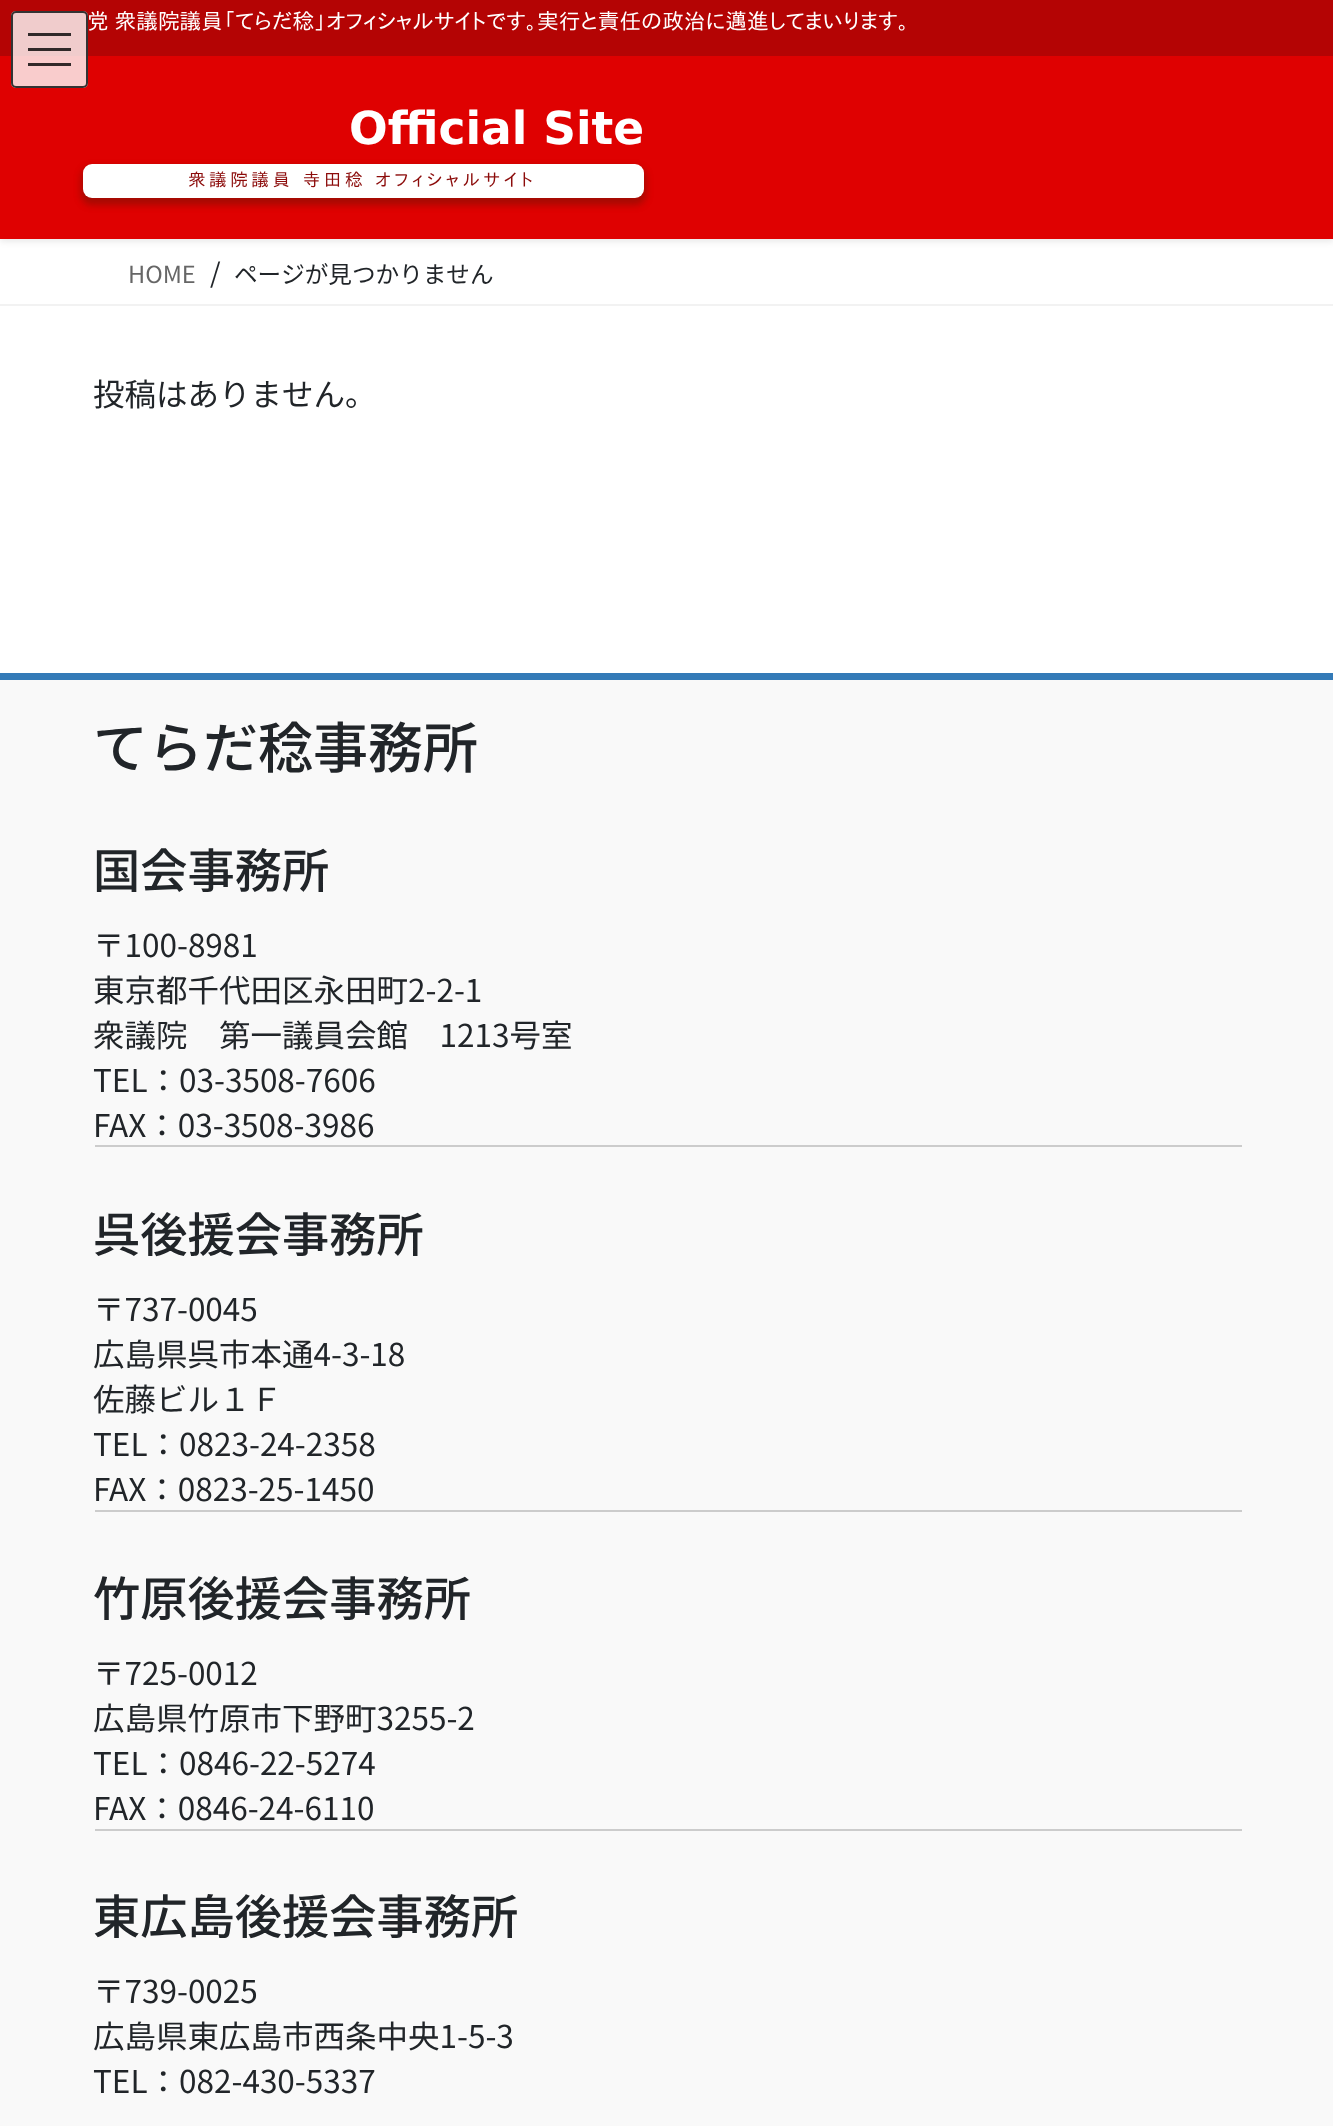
(async () => {
    const canvas = document.querySelector("canvas");
    canvas.width = 1333;
    canvas.height = 2126;
    const context = canvas.getContext("2d");
    context.miterLimit = 4;
    context.fontKerning = "normal";
    function write(s, x, y, font, color) {
        context.font = font;
        context.fillStyle = color;
        context.fillText(s, x, y);
    }
    function block(x, y, w, h, color) {
        context.fillStyle = color;
        context.fillRect(x, y, w, h);
    }
    function card(x, y, w, h, r, color) {
        context.fillStyle = color;
        context.beginPath();
        context.roundRect(x, y, w, h, r);
        context.fill();
    }

    block(0, 0, 1333, 2126, "rgb(255, 255, 255)");
    context.fillStyle = "rgba(0, 0, 0, 0.1)";
    context.filter = "blur(3.5px)";
    context.beginPath();
    context.rect(0, 2, 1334, 239);
    context.fill();
    context.filter = "none";
    block(0, 56, 1333, 183, "rgb(223, 1, 1)");
    block(0, 0, 1333, 56, "rgb(180, 4, 4)");
    card(11, 11, 77, 77, 5, "rgba(255, 255, 255, 0.8)");
    block(28, 33, 43, 3, "rgb(48, 41, 41)");
    block(28, 48, 43, 3, "rgb(48, 41, 41)");
    block(28, 63, 43, 3, "rgb(50, 41, 41)");
    context.beginPath();
    context.roundRect(12, 12, 75, 75, 4);
    context.strokeStyle = "rgb(51, 51, 51)";
    context.lineWidth = 2;
    context.stroke();
    write("党 衆議院議員「てらだ稔」オフィシャルサイトです。", 87, 29, "21.7px IPAPGothic", "rgb(255, 255, 255)");
    write("実行と責任の政治に邁進してまいります。", 537, 29, "21.7px IPAPGothic", "rgb(255, 255, 255)");
    write("Official Site", 349, 144, "bold 45.5px DejaVu Sans", "rgb(255, 255, 255)");
    context.fillStyle = "rgba(56, 28, 7, 0.35)";
    context.filter = "blur(3.5px)";
    context.beginPath();
    context.roundRect(81, 167, 565, 38, 11);
    context.fill();
    context.filter = "none";
    card(83, 164, 561, 34, 9, "rgb(255, 255, 255)");
    context.letterSpacing = "3.5px";
    context.wordSpacing = "1px";
    write("衆議院議員 寺田稔 オフィシャルサイト", 188, 186, "17.6px IPAPGothic", "rgb(140, 12, 11)");
    block(0, 304, 1333, 2, "rgb(242, 242, 242)");
    context.letterSpacing = "0px";
    context.wordSpacing = "0px";
    write("HOME", 128, 283, "23.6px Noto Sans JP", "rgb(102, 102, 102)");
    write("/", 210, 283, "27px Noto Sans JP", "rgb(33, 37, 41)");
    write("ページが見つかりません", 234, 283, "23.6px Noto Sans JP", "rgb(33, 37, 41)");
    write("投稿はありません。", 93, 406, "31.5px Noto Sans JP", "rgb(33, 37, 41)");
    block(0, 680, 1333, 1446, "rgb(249, 249, 249)");
    block(0, 673, 1333, 7, "rgb(51, 122, 183)");
    write("てらだ稔事務所", 93, 768, "500 55px Noto Sans JP", "rgb(33, 37, 41)");
    write("国会事務所", 93, 888, "500 47.25px Noto Sans JP", "rgb(33, 37, 41)");
    block(95, 1145, 1147, 2, "rgb(204, 204, 204)");
    write("〒100-8981", 93, 957, "31.5px Noto Sans JP", "rgb(33, 37, 41)");
    write("東京都千代田区永田町2-2-1", 93, 1002, "31.5px Noto Sans JP", "rgb(33, 37, 41)");
    write("衆議院　第一議員会館　1213号室", 93, 1047, "31.5px Noto Sans JP", "rgb(33, 37, 41)");
    write("TEL：03-3508-7606", 93, 1092, "31.5px Noto Sans JP", "rgb(33, 37, 41)");
    write("FAX：03-3508-3986", 93, 1137, "31.5px Noto Sans JP", "rgb(33, 37, 41)");
    write("呉後援会事務所", 93, 1252, "500 47.25px Noto Sans JP", "rgb(33, 37, 41)");
    block(95, 1510, 1147, 2, "rgb(204, 204, 204)");
    write("〒737-0045", 93, 1321, "31.5px Noto Sans JP", "rgb(33, 37, 41)");
    write("広島県呉市本通4-3-18", 93, 1366, "31.5px Noto Sans JP", "rgb(33, 37, 41)");
    write("佐藤ビル１Ｆ", 93, 1411, "31.5px Noto Sans JP", "rgb(33, 37, 41)");
    write("TEL：0823-24-2358", 93, 1456, "31.5px Noto Sans JP", "rgb(33, 37, 41)");
    write("FAX：0823-25-1450", 93, 1501, "31.5px Noto Sans JP", "rgb(33, 37, 41)");
    write("竹原後援会事務所", 93, 1616, "500 47.25px Noto Sans JP", "rgb(33, 37, 41)");
    block(95, 1829, 1147, 2, "rgb(204, 204, 204)");
    write("〒725-0012", 93, 1685, "31.5px Noto Sans JP", "rgb(33, 37, 41)");
    write("広島県竹原市下野町3255-2", 93, 1730, "31.5px Noto Sans JP", "rgb(33, 37, 41)");
    write("TEL：0846-22-5274", 93, 1775, "31.5px Noto Sans JP", "rgb(33, 37, 41)");
    write("FAX：0846-24-6110", 93, 1820, "31.5px Noto Sans JP", "rgb(33, 37, 41)");
    write("東広島後援会事務所", 93, 1934, "500 47.25px Noto Sans JP", "rgb(33, 37, 41)");
    write("〒739-0025", 93, 2003, "31.5px Noto Sans JP", "rgb(33, 37, 41)");
    write("広島県東広島市西条中央1-5-3", 93, 2048, "31.5px Noto Sans JP", "rgb(33, 37, 41)");
    write("TEL：082-430-5337", 93, 2093, "31.5px Noto Sans JP", "rgb(33, 37, 41)");
})();
